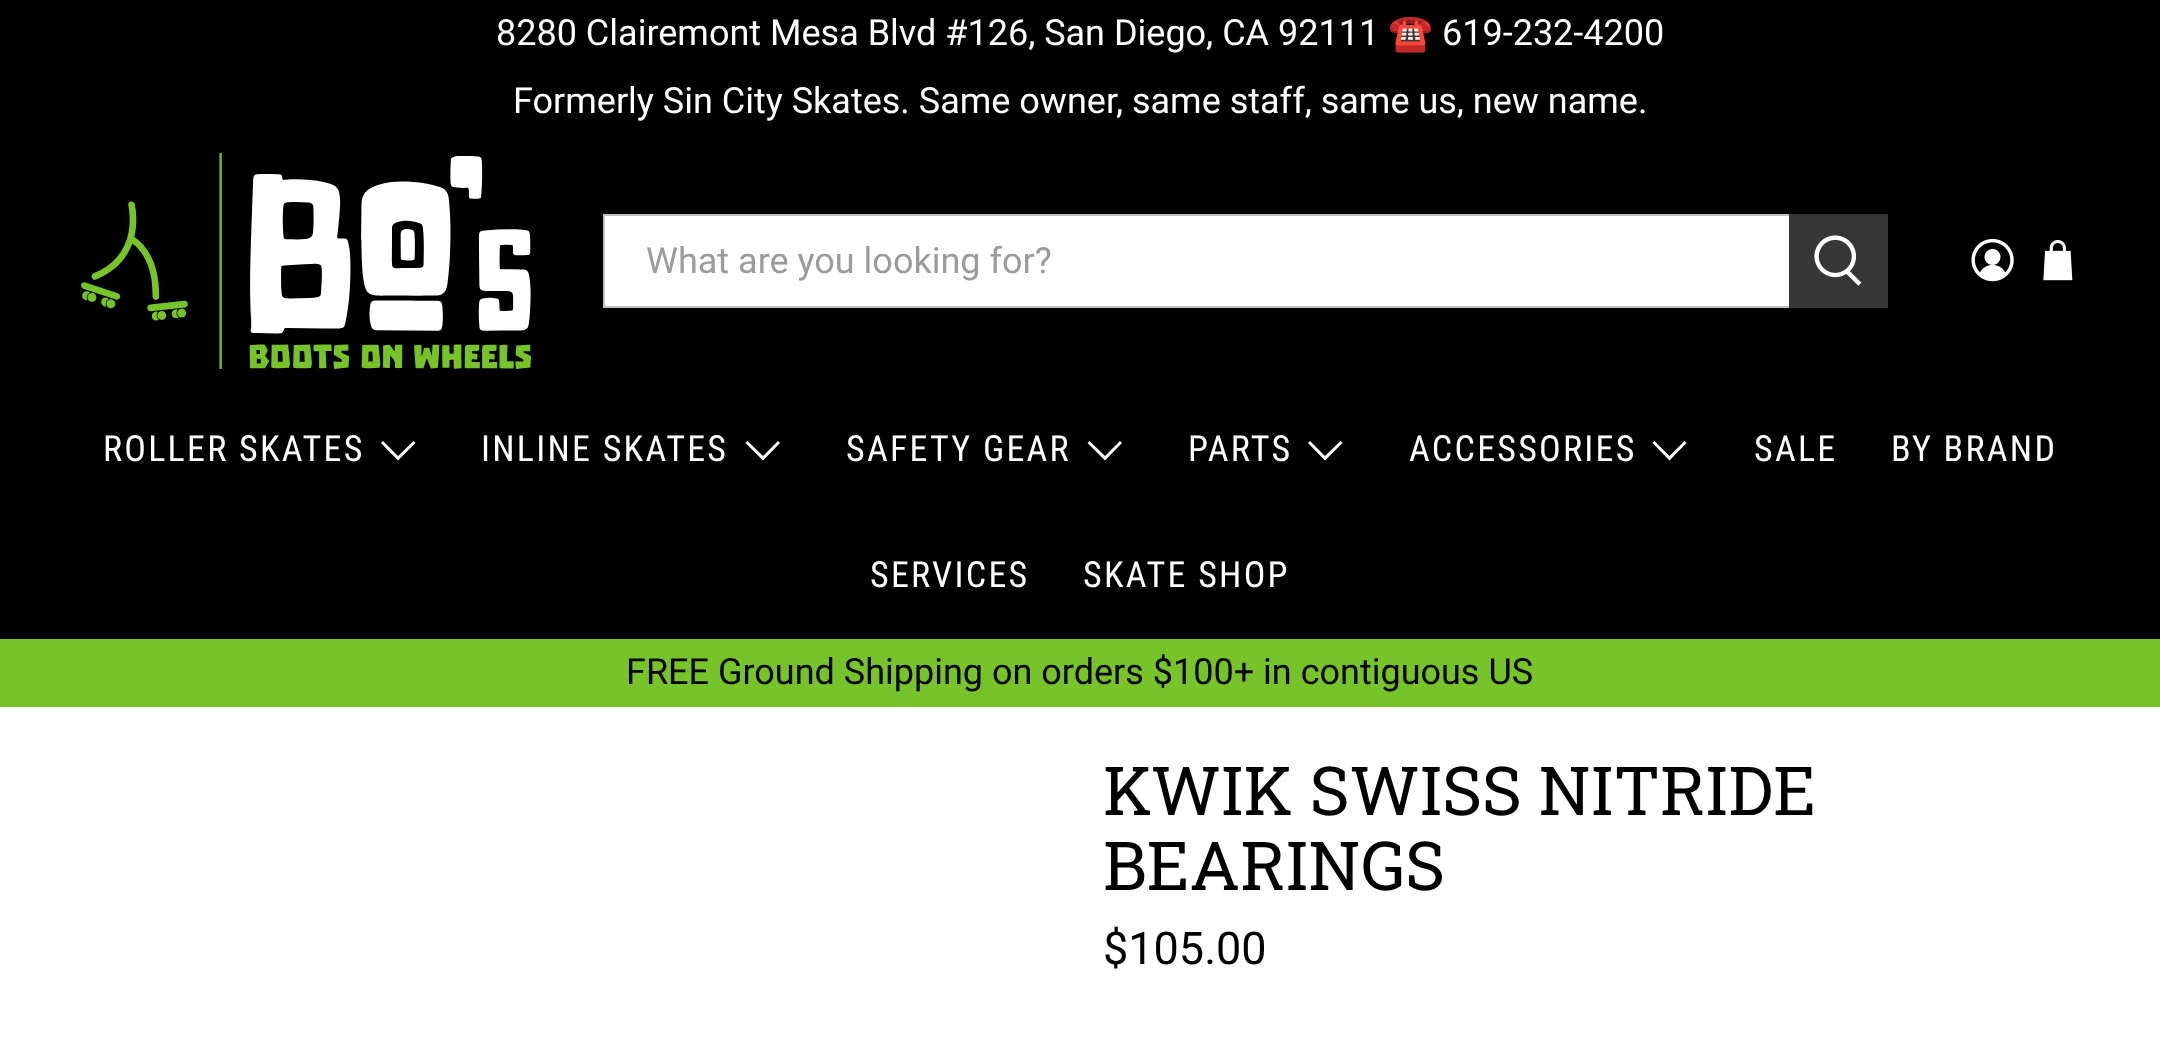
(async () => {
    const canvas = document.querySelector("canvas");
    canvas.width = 2160;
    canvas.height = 1056;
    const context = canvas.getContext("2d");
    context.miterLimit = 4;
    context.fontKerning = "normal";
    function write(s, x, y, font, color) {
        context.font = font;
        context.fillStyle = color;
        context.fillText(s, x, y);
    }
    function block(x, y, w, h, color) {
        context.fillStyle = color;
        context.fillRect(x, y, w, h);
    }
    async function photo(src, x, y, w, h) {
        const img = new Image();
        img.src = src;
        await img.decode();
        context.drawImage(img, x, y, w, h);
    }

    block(0, 0, 2160, 1056, "rgb(255, 255, 255)");
    block(0, 0, 2160, 639, "rgb(0, 0, 0)");
    write("8280 Clairemont Mesa Blvd #126, San Diego, CA 92111", 496, 45, "36px Roboto", "rgb(255, 255, 255)");
    write("☎️", 1388, 45, "36px Noto Color Emoji", "rgb(255, 255, 255)");
    write("619-232-4200", 1442, 45, "36px Roboto", "rgb(255, 255, 255)");
    write("Formerly Sin City Skates. Same owner, same staff, same us, new name.", 513, 113, "36px Roboto", "rgb(255, 255, 255)");
    await photo("media/1.png", 81, 153, 450, 216);
    context.beginPath();
    context.rect(604, 215, 1186, 92);
    context.fill();
    context.strokeStyle = "rgb(192, 192, 192)";
    context.lineWidth = 2;
    context.stroke();
    write("What are you looking for?", 646, 273, "36px Roboto", "rgb(155, 155, 155)");
    block(1789, 214, 99, 94, "rgb(54, 54, 54)");
    await photo("media/2.png", 1814, 235, 48, 51);
    await photo("media/3.png", 1971, 239, 43, 43);
    await photo("media/4.png", 2043, 240, 30, 41);
    context.letterSpacing = "2.25px";
    write("ROLLER SKATES", 103, 461, "36px Roboto Condensed", "rgb(255, 255, 255)");
    context.beginPath();
    context.moveTo(398, 460.5);
    context.lineTo(381, 443);
    context.lineTo(383, 441);
    context.lineTo(398, 456);
    context.lineTo(413.5, 441);
    context.lineTo(415.5, 443);
    context.closePath();
    context.fill();
    write("INLINE SKATES", 481, 461, "36px Roboto Condensed", "rgb(255, 255, 255)");
    context.beginPath();
    context.moveTo(763, 460.5);
    context.lineTo(745.5, 443);
    context.lineTo(747.5, 441);
    context.lineTo(763, 456);
    context.lineTo(778, 441);
    context.lineTo(780, 443);
    context.closePath();
    context.fill();
    write("SAFETY GEAR", 846, 461, "36px Roboto Condensed", "rgb(255, 255, 255)");
    context.beginPath();
    context.moveTo(1105, 460.5);
    context.lineTo(1087.5, 443);
    context.lineTo(1089.5, 441);
    context.lineTo(1105, 456);
    context.lineTo(1120, 441);
    context.lineTo(1122, 443);
    context.closePath();
    context.fill();
    write("PARTS", 1188, 461, "36px Roboto Condensed", "rgb(255, 255, 255)");
    context.beginPath();
    context.moveTo(1325, 460.5);
    context.lineTo(1308, 443);
    context.lineTo(1310, 441);
    context.lineTo(1325, 456);
    context.lineTo(1340.5, 441);
    context.lineTo(1342.5, 443);
    context.closePath();
    context.fill();
    write("ACCESSORIES", 1409, 461, "36px Roboto Condensed", "rgb(255, 255, 255)");
    context.beginPath();
    context.moveTo(1669.5, 460.5);
    context.lineTo(1652.5, 443);
    context.lineTo(1654.5, 441);
    context.lineTo(1669.5, 456);
    context.lineTo(1684.5, 441);
    context.lineTo(1686.5, 443);
    context.closePath();
    context.fill();
    write("SALE", 1754, 461, "36px Roboto Condensed", "rgb(255, 255, 255)");
    write("BY BRAND", 1891, 461, "36px Roboto Condensed", "rgb(255, 255, 255)");
    write("SERVICES", 870, 587, "36px Roboto Condensed", "rgb(255, 255, 255)");
    write("SKATE SHOP", 1083, 587, "36px Roboto Condensed", "rgb(255, 255, 255)");
    block(0, 639, 2160, 68, "rgb(118, 196, 41)");
    context.letterSpacing = "0px";
    write("FREE Ground Shipping on orders $100+ in contiguous US", 626, 684, "36px Roboto", "rgb(0, 0, 0)");
    write("KWIK SWISS NITRIDE", 1103, 815, "67.5px Roboto Slab", "rgb(0, 0, 0)");
    write("BEARINGS", 1103, 890, "67.5px Roboto Slab", "rgb(0, 0, 0)");
    write("$105.00", 1103, 964, "45px Roboto", "rgb(0, 0, 0)");
})();
